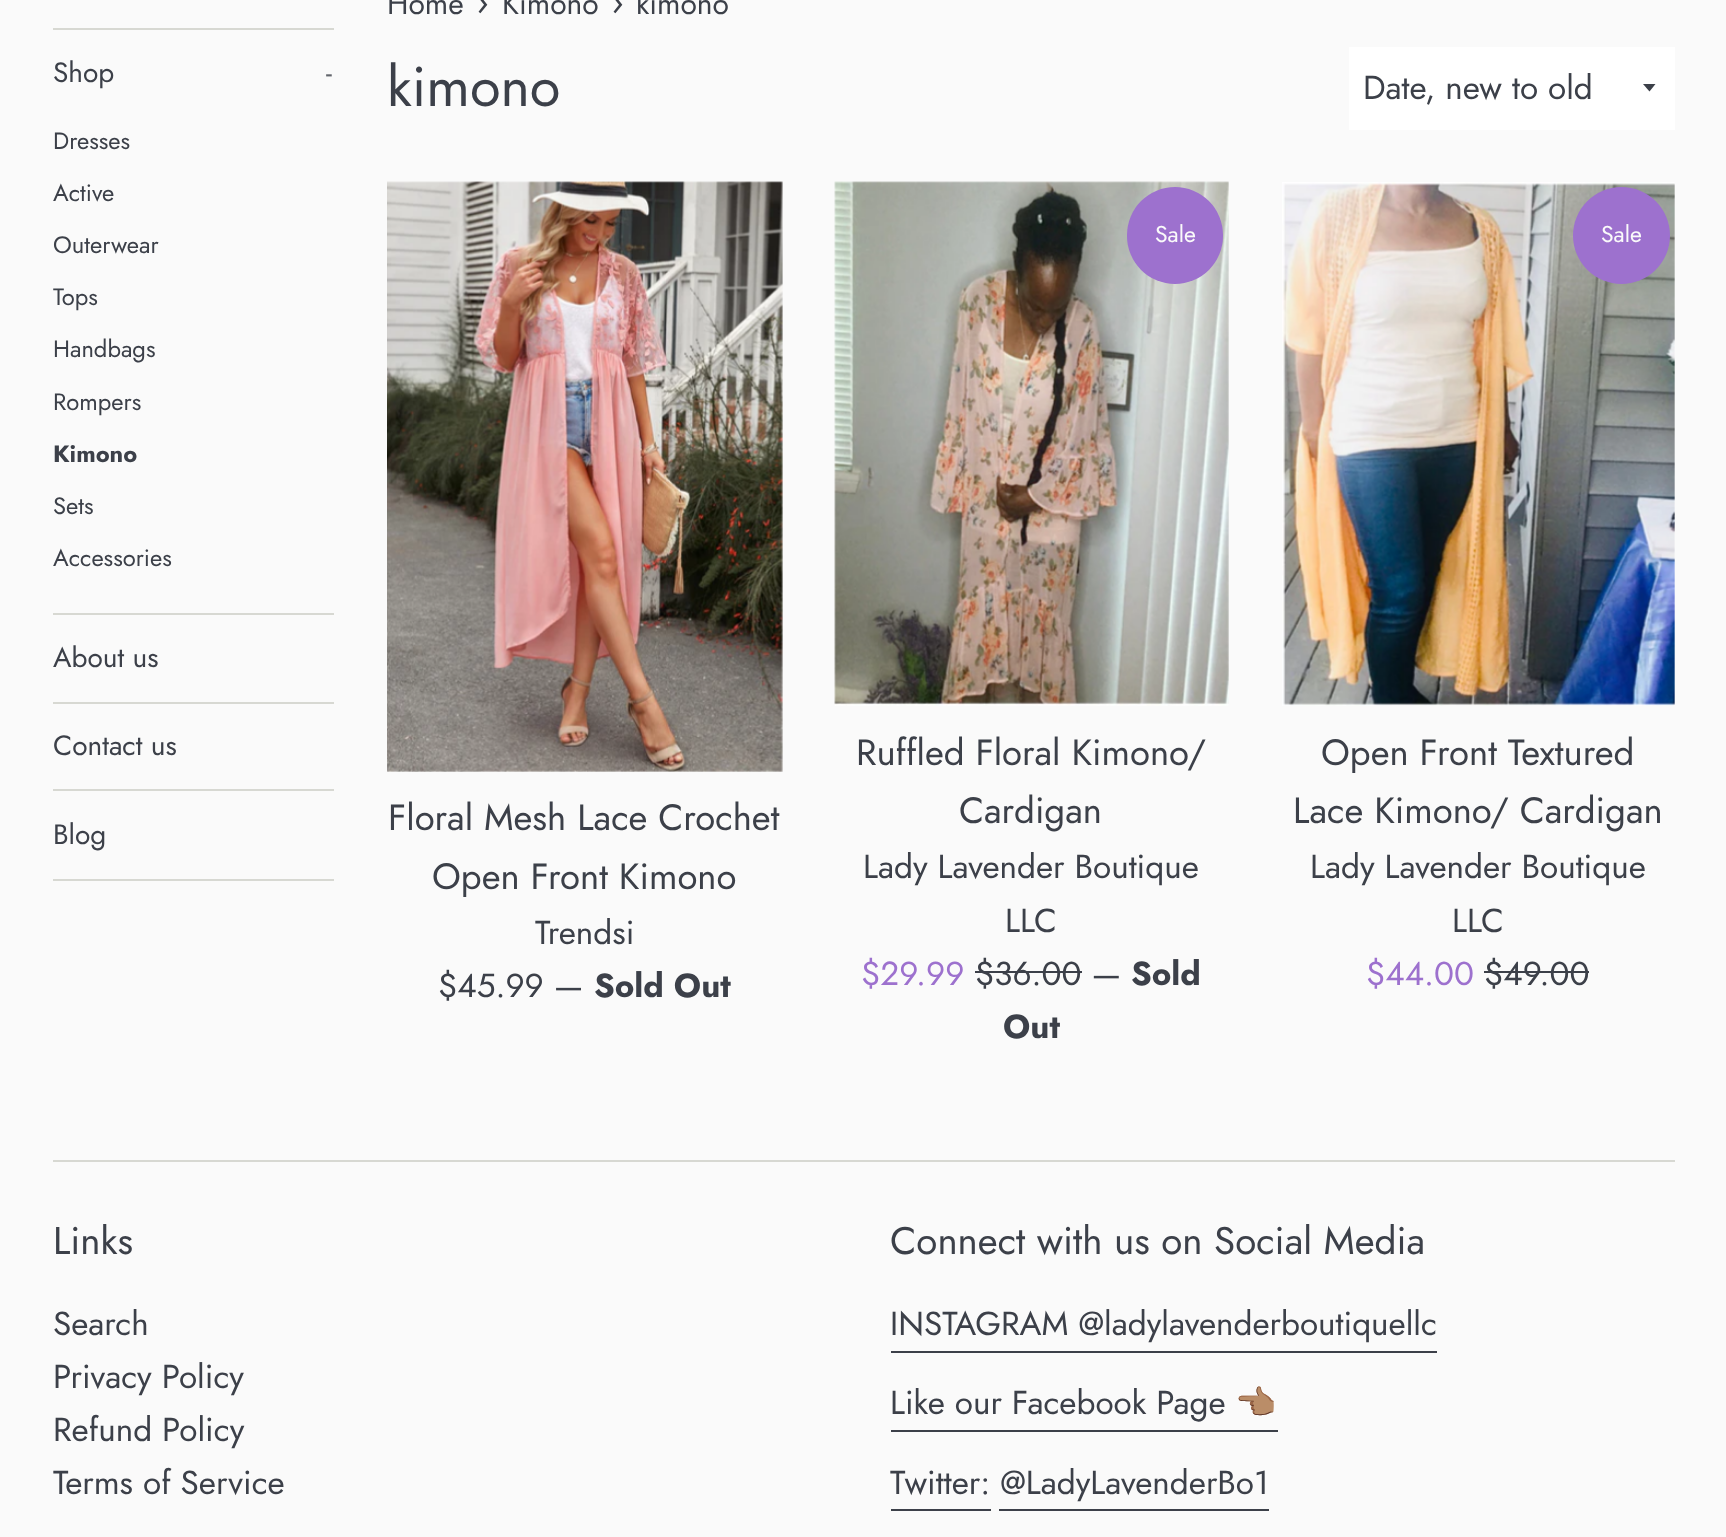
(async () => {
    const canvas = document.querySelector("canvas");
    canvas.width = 1726;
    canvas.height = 1537;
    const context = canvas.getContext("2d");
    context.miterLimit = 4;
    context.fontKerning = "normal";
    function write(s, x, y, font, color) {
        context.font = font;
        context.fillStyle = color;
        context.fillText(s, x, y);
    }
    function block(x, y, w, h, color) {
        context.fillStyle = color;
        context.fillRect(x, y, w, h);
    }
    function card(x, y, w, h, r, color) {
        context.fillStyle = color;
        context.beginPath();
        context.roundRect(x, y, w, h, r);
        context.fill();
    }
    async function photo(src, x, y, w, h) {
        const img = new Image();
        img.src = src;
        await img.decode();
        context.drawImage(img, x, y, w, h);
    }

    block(0, 0, 1726, 1537, "rgb(250, 250, 250)");
    block(53, 28, 281, 2, "rgb(215, 216, 210)");
    block(53, 613, 281, 2, "rgb(215, 216, 210)");
    write("Shop", 53, 82, "28px Jost", "rgb(60, 64, 73)");
    write("-", 326, 82, "28px Jost", "rgb(98, 101, 108)");
    write("Dresses", 53, 149, "23.75px Jost", "rgb(60, 64, 73)");
    write("Active", 53, 201, "23.75px Jost", "rgb(60, 64, 73)");
    write("Outerwear", 53, 253, "23.75px Jost", "rgb(60, 64, 73)");
    write("Tops", 53, 305, "23.75px Jost", "rgb(60, 64, 73)");
    write("Handbags", 53, 357, "23.75px Jost", "rgb(60, 64, 73)");
    write("Rompers", 53, 410, "23.75px Jost", "rgb(60, 64, 73)");
    write("Kimono", 53, 462, "bold 23.75px Jost", "rgb(60, 64, 73)");
    write("Sets", 53, 514, "23.75px Jost", "rgb(60, 64, 73)");
    write("Accessories", 53, 566, "23.75px Jost", "rgb(60, 64, 73)");
    block(53, 702, 281, 2, "rgb(215, 216, 210)");
    write("About us", 53, 667, "28px Jost", "rgb(60, 64, 73)");
    block(53, 789, 281, 2, "rgb(215, 216, 210)");
    write("Contact us", 53, 755, "28px Jost", "rgb(60, 64, 73)");
    block(53, 879, 281, 2, "rgb(215, 216, 210)");
    write("Blog", 53, 844, "28px Jost", "rgb(60, 64, 73)");
    write("Home", 387, 14, "30px Jost", "rgb(60, 64, 73)");
    write("›", 476, 14, "36.5px Jost", "rgb(60, 64, 73)");
    write("Kimono", 502, 14, "30px Jost", "rgb(60, 64, 73)");
    write("›", 611, 14, "36.5px Jost", "rgb(60, 64, 73)");
    write("kimono", 636, 14, "30px Jost", "rgb(60, 64, 73)");
    write("kimono", 387, 106, "56px Jost", "rgb(60, 64, 73)");
    block(1349, 47, 326, 83, "rgb(255, 255, 255)");
    context.fillStyle = "rgb(60, 64, 73)";
    context.beginPath();
    context.moveTo(1643, 84);
    context.lineTo(1649.5, 91.5);
    context.lineTo(1655.5, 84);
    context.closePath();
    context.fill();
    write("Date, new to old", 1363, 99, "33.25px Jost", "rgb(60, 64, 73)");
    await photo("media/1.png", 387, 181, 396, 591);
    write("Floral Mesh Lace Crochet", 388, 830, "36.5px Jost", "rgb(60, 64, 73)");
    write("Open Front Kimono", 432, 889, "36.5px Jost", "rgb(60, 64, 73)");
    write("Trendsi", 535, 944, "33.25px Jost", "rgb(60, 64, 73)");
    write("$45.99 —", 438, 997, "33.25px Jost", "rgb(60, 64, 73)");
    write("Sold Out", 594, 997, "bold 33.25px Jost", "rgb(60, 64, 73)");
    await photo("media/2.png", 834, 181, 395, 525);
    card(1127, 187, 96, 97, 48, "rgb(157, 113, 206)");
    write("Sale", 1155, 242, "23px Jost", "rgb(250, 250, 250)");
    write("$29.99", 861, 985, "33.25px Jost", "rgb(157, 113, 206)");
    write("$36.00 —", 975, 985, "33.25px Jost", "rgb(60, 64, 73)");
    block(975, 971, 107, 2, "rgb(60, 64, 73)");
    write("Sold", 1131, 985, "bold 33.25px Jost", "rgb(60, 64, 73)");
    write("Out", 1003, 1038, "bold 33.25px Jost", "rgb(60, 64, 73)");
    write("Ruffled Floral Kimono/", 856, 765, "36.5px Jost", "rgb(60, 64, 73)");
    write("Cardigan", 959, 823, "36.5px Jost", "rgb(60, 64, 73)");
    write("Lady Lavender Boutique", 863, 878, "33.25px Jost", "rgb(60, 64, 73)");
    write("LLC", 1005, 932, "33.25px Jost", "rgb(60, 64, 73)");
    await photo("media/3.png", 1282, 182, 393, 524);
    context.fillStyle = "rgb(157, 113, 206)";
    context.beginPath();
    context.arc(1621.5, 235.5, 48.5, 0, Math.PI * 2);
    context.fill();
    write("Sale", 1601, 242, "23px Jost", "rgb(250, 250, 250)");
    write("$44.00", 1366, 985, "33.25px Jost", "rgb(157, 113, 206)");
    write("$49.00", 1484, 985, "33.25px Jost", "rgb(60, 64, 73)");
    block(1484, 971, 105, 2, "rgb(60, 64, 73)");
    write("Open Front Textured", 1321, 765, "36.5px Jost", "rgb(60, 64, 73)");
    write("Lace Kimono/ Cardigan", 1293, 823, "36.5px Jost", "rgb(60, 64, 73)");
    write("Lady Lavender Boutique", 1310, 878, "33.25px Jost", "rgb(60, 64, 73)");
    write("LLC", 1452, 932, "33.25px Jost", "rgb(60, 64, 73)");
    block(53, 1160, 1622, 2, "rgb(215, 216, 210)");
    write("Links", 53, 1254, "38.5px Jost", "rgb(60, 64, 73)");
    write("Search", 53, 1335, "33.25px Jost", "rgb(60, 64, 73)");
    write("Privacy Policy", 53, 1388, "33.25px Jost", "rgb(60, 64, 73)");
    write("Refund Policy", 53, 1441, "33.25px Jost", "rgb(60, 64, 73)");
    write("Terms of Service", 53, 1494, "33.25px Jost", "rgb(60, 64, 73)");
    write("Connect with us on Social Media", 890, 1254, "38.5px Jost", "rgb(60, 64, 73)");
    write("INSTAGRAM @ladylavenderboutiquellc", 890, 1335, "33.25px Jost", "rgb(60, 64, 73)");
    block(891, 1351, 546, 2, "rgb(60, 64, 73)");
    write("Like our Facebook Page", 890, 1414, "33.25px Jost", "rgb(60, 64, 73)");
    block(891, 1430, 387, 2, "rgb(60, 64, 73)");
    write("👈🏽", 1235, 1414, "33.25px Noto Color Emoji", "rgb(60, 64, 73)");
    write("Twitter: @LadyLavenderBo1", 890, 1494, "33.25px Jost", "rgb(60, 64, 73)");
    block(891, 1509, 100, 2, "rgb(60, 64, 73)");
    block(999, 1509, 270, 2, "rgb(60, 64, 73)");
})();
